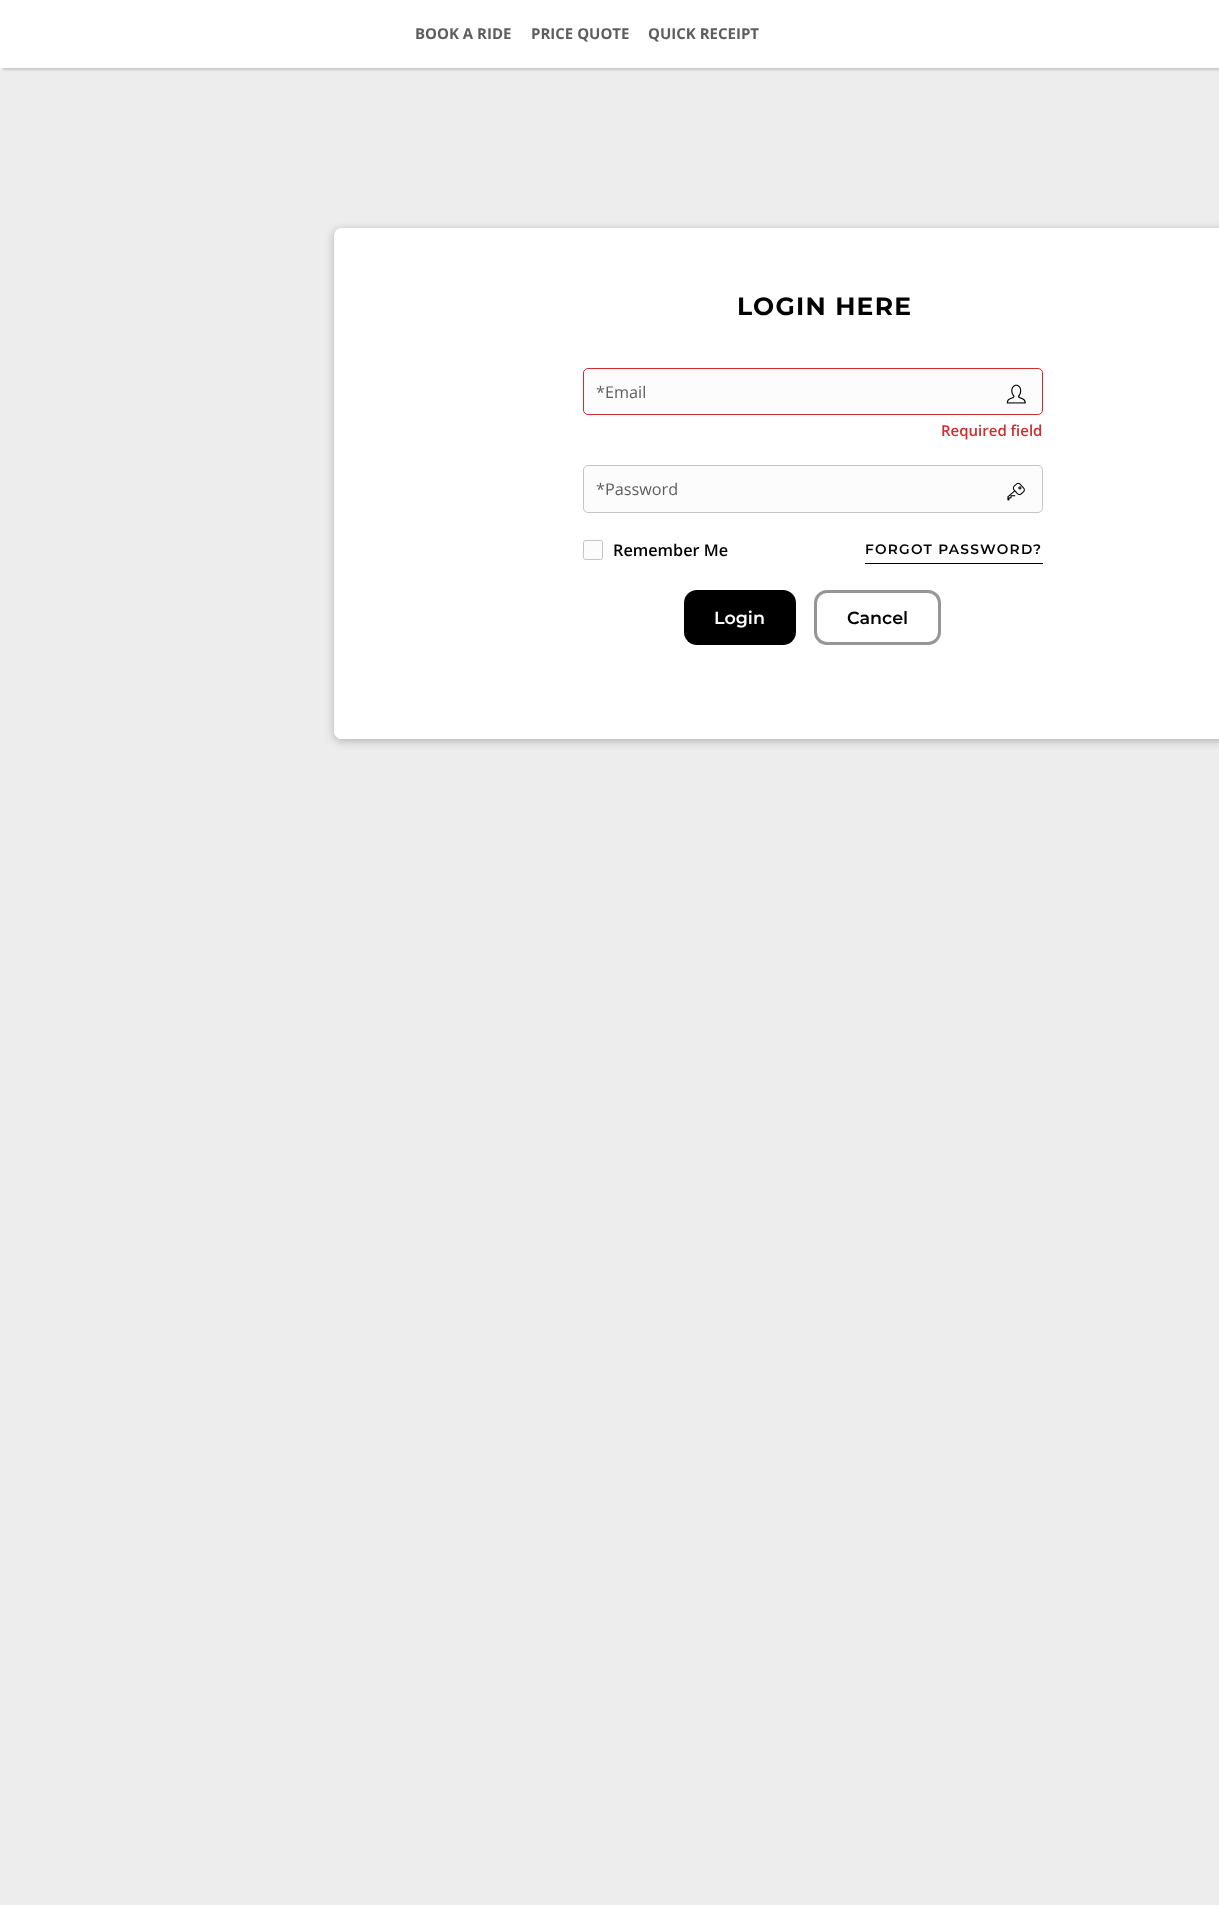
(async () => {
    const canvas = document.querySelector("canvas");
    canvas.width = 1219;
    canvas.height = 1905;
    const context = canvas.getContext("2d");
    context.miterLimit = 4;
    context.fontKerning = "normal";
    function write(s, x, y, font, color) {
        context.font = font;
        context.fillStyle = color;
        context.fillText(s, x, y);
    }
    function block(x, y, w, h, color) {
        context.fillStyle = color;
        context.fillRect(x, y, w, h);
    }
    function card(x, y, w, h, r, color) {
        context.fillStyle = color;
        context.beginPath();
        context.roundRect(x, y, w, h, r);
        context.fill();
    }
    async function photo(src, x, y, w, h) {
        const img = new Image();
        img.src = src;
        await img.decode();
        context.drawImage(img, x, y, w, h);
    }

    block(0, 0, 1219, 1905, "rgb(237, 237, 238)");
    context.fillStyle = "rgba(0, 0, 0, 0.15)";
    context.filter = "blur(1px)";
    context.beginPath();
    context.rect(3, 8, 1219, 62);
    context.fill();
    context.filter = "none";
    block(0, 0, 1219, 68, "rgb(255, 255, 255)");
    write("BOOK A RIDE", 415, 39, "bold 15px Open Sans", "rgb(94, 94, 94)");
    write("PRICE QUOTE", 531, 39, "bold 15px Open Sans", "rgb(94, 94, 94)");
    write("QUICK RECEIPT", 648, 39, "bold 15px Open Sans", "rgb(94, 94, 94)");
    context.fillStyle = "rgba(0, 0, 0, 0.25)";
    context.filter = "blur(5px)";
    context.beginPath();
    context.roundRect(334, 230, 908, 511, 8);
    context.fill();
    context.filter = "none";
    card(334, 228, 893, 511, 8, "rgb(255, 255, 255)");
    context.letterSpacing = "1.25px";
    write("LOGIN HERE", 737, 315, "bold 25px Montserrat", "rgb(0, 0, 0)");
    context.fillStyle = "rgb(255, 255, 255)";
    context.beginPath();
    context.moveTo(334, 341);
    context.lineTo(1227, 341);
    context.lineTo(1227, 731);
    context.bezierCurveTo(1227, 735.5, 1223.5, 739, 1219, 739);
    context.lineTo(342, 739);
    context.bezierCurveTo(337.5, 739, 334, 735.5, 334, 731);
    context.closePath();
    context.fill();
    context.fillStyle = "rgb(252, 252, 252)";
    context.beginPath();
    context.roundRect(583.5, 368.5, 459, 46, 4.5);
    context.fill();
    context.strokeStyle = "rgb(207, 45, 45)";
    context.stroke();
    context.letterSpacing = "0px";
    write("*Email", 596, 398, "16.25px Open Sans", "rgb(94, 94, 94)");
    await photo("media/1.png", 1006, 384, 20, 20);
    write("Required field", 941, 436, "600 15px Open Sans", "rgb(207, 45, 45)");
    context.fillStyle = "rgb(252, 252, 252)";
    context.beginPath();
    context.roundRect(583.5, 465.5, 459, 47, 4.5);
    context.fill();
    context.strokeStyle = "rgb(196, 196, 196)";
    context.stroke();
    write("*Password", 596, 495, "16.25px Open Sans", "rgb(94, 94, 94)");
    await photo("media/2.png", 1007, 482, 18, 19);
    context.fillStyle = "rgb(252, 252, 252)";
    context.beginPath();
    context.roundRect(583.5, 540.5, 19, 19, 2);
    context.fill();
    context.stroke();
    write("Remember Me", 613, 556, "600 16.25px Open Sans", "rgb(0, 0, 0)");
    block(865, 563, 178, 1, "rgb(0, 0, 0)");
    context.letterSpacing = "1.25px";
    write("FORGOT PASSWORD?", 865, 554, "600 13.75px Montserrat", "rgb(0, 0, 0)");
    card(684, 590, 112, 55, 13, "rgb(0, 0, 0)");
    context.letterSpacing = "0px";
    write("Login", 714, 624, "600 17.5px Montserrat", "rgb(255, 255, 255)");
    context.beginPath();
    context.roundRect(815.5, 591.5, 124, 52, 11.5);
    context.strokeStyle = "rgb(150, 150, 150)";
    context.lineWidth = 3;
    context.stroke();
    write("Cancel", 847, 624, "600 17.5px Montserrat", "rgb(0, 0, 0)");
})();
